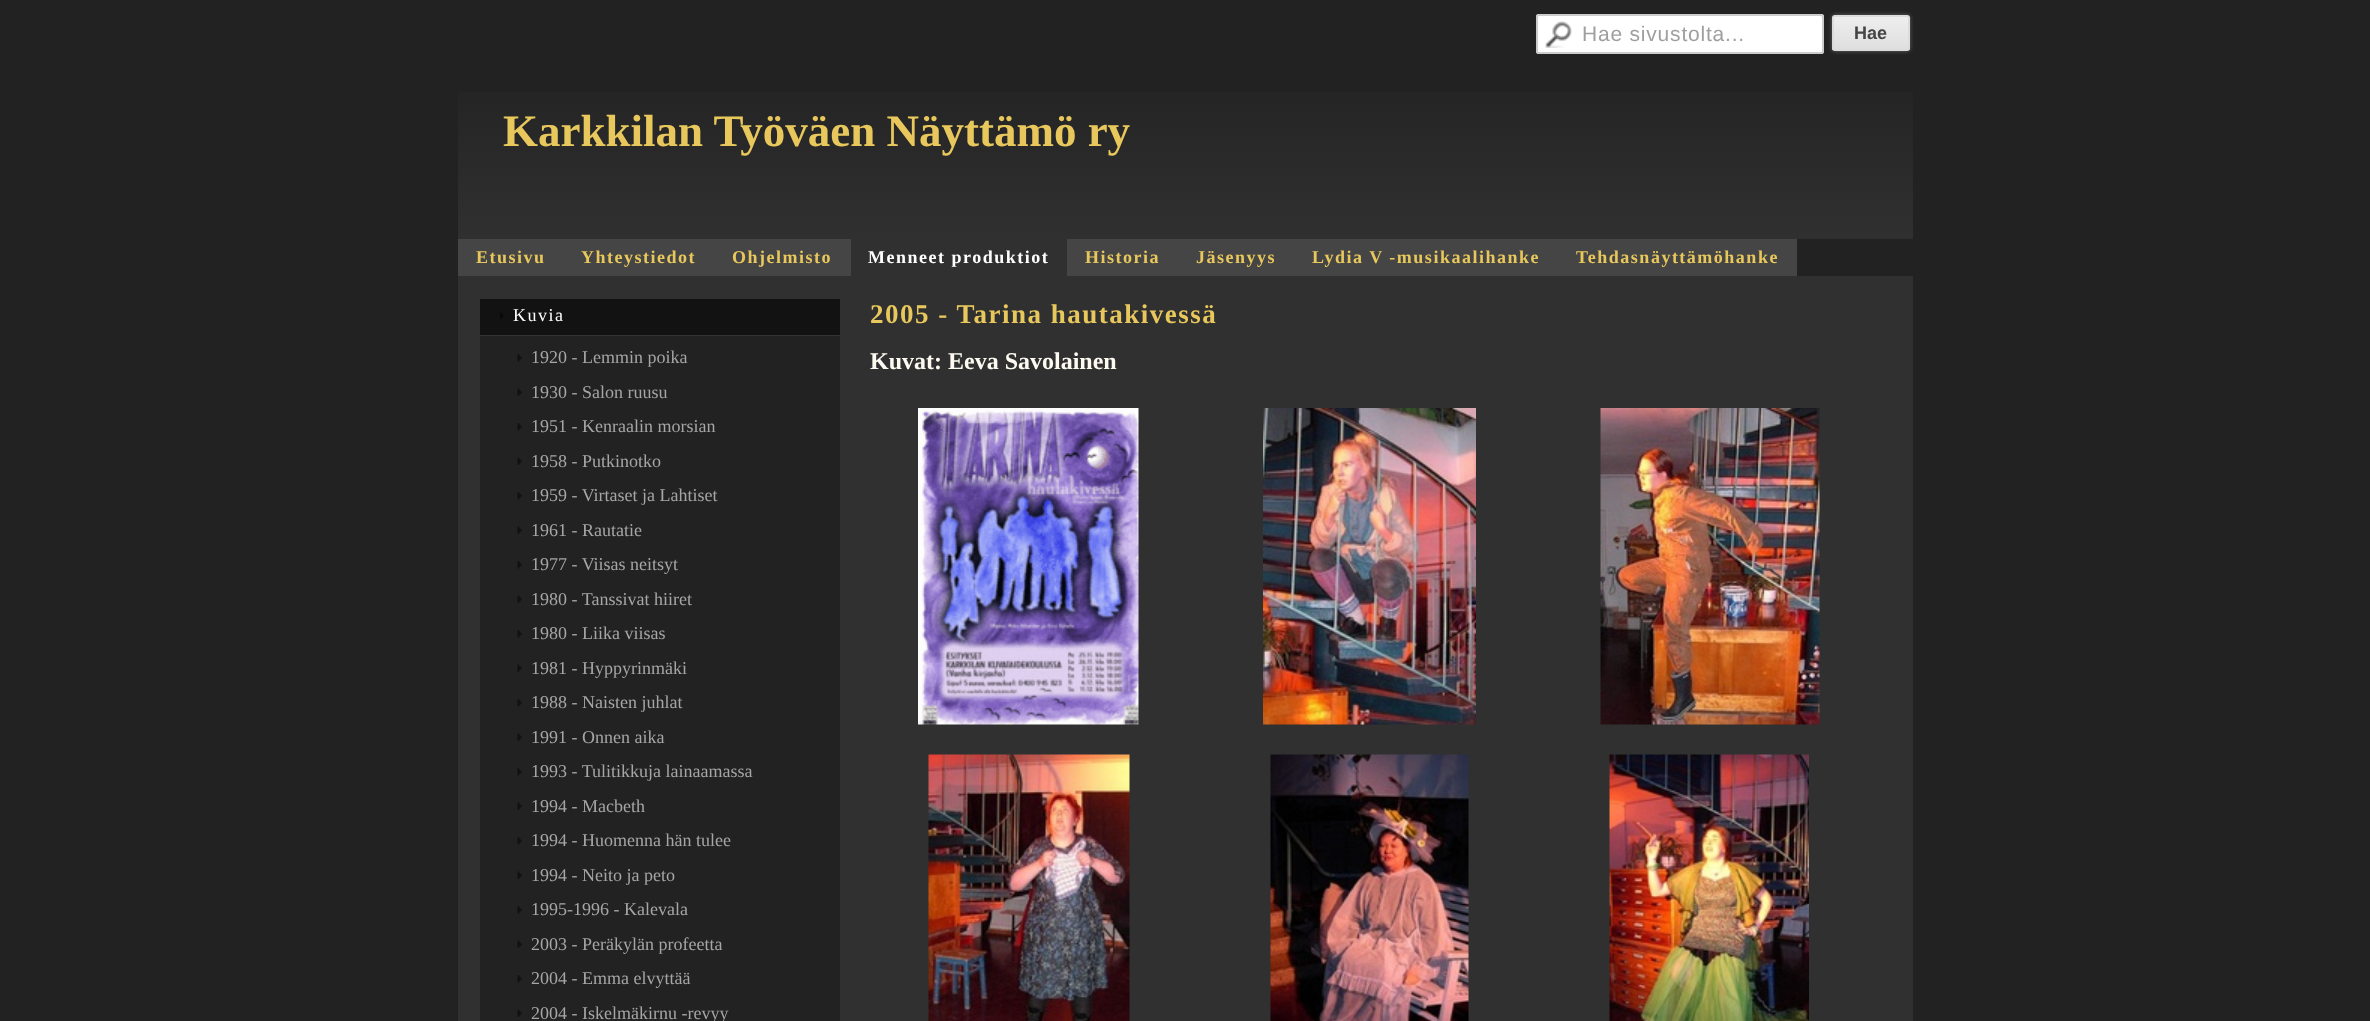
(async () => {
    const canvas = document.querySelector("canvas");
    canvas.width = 2370;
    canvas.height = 1021;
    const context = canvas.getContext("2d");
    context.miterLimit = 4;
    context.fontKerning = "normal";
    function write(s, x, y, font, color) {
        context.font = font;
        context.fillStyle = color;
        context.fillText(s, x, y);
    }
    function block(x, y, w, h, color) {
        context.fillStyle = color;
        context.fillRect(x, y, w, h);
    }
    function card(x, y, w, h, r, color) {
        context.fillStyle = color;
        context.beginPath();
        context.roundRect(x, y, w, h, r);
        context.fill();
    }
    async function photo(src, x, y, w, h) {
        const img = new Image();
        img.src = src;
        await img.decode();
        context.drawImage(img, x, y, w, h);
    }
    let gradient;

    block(0, 0, 2370, 1021, "rgb(34, 34, 34)");
    card(1536, 14, 288, 40, 3, "rgb(255, 255, 255)");
    await photo("media/1.png", 1545, 21, 27, 27);
    context.fillStyle = "rgb(230, 230, 230)";
    context.beginPath();
    context.moveTo(1539, 16);
    context.lineTo(1821, 16);
    context.bezierCurveTo(1823, 16, 1822, 27, 1822, 29);
    context.lineTo(1822, 53);
    context.bezierCurveTo(1824, 52, 1823, 47, 1823, 46);
    context.lineTo(1823, 16);
    context.lineTo(1822, 15);
    context.lineTo(1540, 15);
    context.lineTo(1538, 15);
    context.lineTo(1538, 18);
    context.bezierCurveTo(1538, 17, 1538, 16, 1539, 16);
    context.closePath();
    context.fill();
    context.beginPath();
    context.roundRect(1537, 15, 286, 38, 2);
    context.strokeStyle = "rgb(204, 204, 204)";
    context.lineWidth = 2;
    context.stroke();
    context.letterSpacing = "0.8px";
    write("Hae sivustolta...", 1582, 41, "21px Liberation Sans", "rgb(159, 159, 159)");
    context.fillStyle = "rgb(102, 102, 102)";
    context.filter = "blur(2px)";
    context.beginPath();
    context.roundRect(1832, 15, 78, 36, 3);
    context.fill();
    context.filter = "none";
    context.save();
    context.beginPath();
    context.roundRect(1832, 15, 78, 36, 3);
    context.clip();
    gradient = context.createLinearGradient(1833, 17, 1833, 50);
    gradient.addColorStop(0.05, "rgb(237, 237, 237)");
    gradient.addColorStop(1, "rgb(223, 223, 223)");
    context.fillStyle = gradient;
    context.fillRect(1832, 17, 78, 33);
    context.restore();
    context.beginPath();
    context.roundRect(1833, 16, 76, 34, 2);
    context.strokeStyle = "rgb(220, 220, 220)";
    context.stroke();
    context.letterSpacing = "0px";
    write("Hae", 1854, 39, "bold 18px Liberation Sans", "rgb(68, 68, 68)");
    gradient = context.createLinearGradient(1185, 60, 1185, 239);
    gradient.addColorStop(0, "rgb(34, 34, 34)");
    gradient.addColorStop(1, "rgb(48, 48, 48)");
    context.fillStyle = gradient;
    context.fillRect(458, 92, 1455, 147);
    write("Karkkilan Työväen Näyttämö ry", 503, 146, "bold 45px Liberation Serif", "rgb(232, 200, 92)");
    block(458, 239, 393, 37, "rgb(69, 69, 69)");
    context.letterSpacing = "1.5px";
    write("Etusivu", 476, 263, "bold 18px Liberation Serif", "rgb(232, 200, 92)");
    write("Yhteystiedot", 581, 263, "bold 18px Liberation Serif", "rgb(232, 200, 92)");
    write("Ohjelmisto", 732, 263, "bold 18px Liberation Serif", "rgb(232, 200, 92)");
    block(851, 239, 216, 37, "rgb(48, 48, 48)");
    write("Menneet produktiot", 868, 263, "bold 18px Liberation Serif", "rgb(255, 255, 255)");
    block(1067, 239, 730, 37, "rgb(69, 69, 69)");
    write("Historia", 1085, 263, "bold 18px Liberation Serif", "rgb(232, 200, 92)");
    write("Jäsenyys", 1196, 263, "bold 18px Liberation Serif", "rgb(232, 200, 92)");
    write("Lydia V -musikaalihanke", 1312, 263, "bold 18px Liberation Serif", "rgb(232, 200, 92)");
    write("Tehdasnäyttämöhanke", 1576, 263, "bold 18px Liberation Serif", "rgb(232, 200, 92)");
    block(458, 276, 1455, 745, "rgb(48, 48, 48)");
    block(480, 299, 360, 36, "rgb(18, 18, 18)");
    block(480, 335, 360, 1, "rgb(51, 51, 51)");
    await photo("media/2.png", 500, 312, 4, 7);
    write("Kuvia", 513, 321, "18px Liberation Serif", "rgb(255, 255, 255)");
    block(480, 336, 360, 685, "rgb(34, 34, 34)");
    await photo("media/3.png", 517, 354, 5, 8);
    context.letterSpacing = "0px";
    write("1920 - Lemmin poika", 531, 363, "18px Liberation Serif", "rgb(166, 166, 166)");
    await photo("media/4.png", 517, 388, 5, 8);
    write("1930 - Salon ruusu", 531, 398, "18px Liberation Serif", "rgb(166, 166, 166)");
    await photo("media/3.png", 517, 423, 5, 8);
    write("1951 - Kenraalin morsian", 531, 432, "18px Liberation Serif", "rgb(166, 166, 166)");
    await photo("media/4.png", 517, 457, 5, 8);
    write("1958 - Putkinotko", 531, 467, "18px Liberation Serif", "rgb(166, 166, 166)");
    await photo("media/3.png", 517, 492, 5, 8);
    write("1959 - Virtaset ja Lahtiset", 531, 501, "18px Liberation Serif", "rgb(166, 166, 166)");
    await photo("media/4.png", 517, 526, 5, 8);
    write("1961 - Rautatie", 531, 536, "18px Liberation Serif", "rgb(166, 166, 166)");
    await photo("media/3.png", 517, 561, 5, 8);
    write("1977 - Viisas neitsyt", 531, 570, "18px Liberation Serif", "rgb(166, 166, 166)");
    await photo("media/4.png", 517, 595, 5, 8);
    write("1980 - Tanssivat hiiret", 531, 605, "18px Liberation Serif", "rgb(166, 166, 166)");
    await photo("media/3.png", 517, 630, 5, 8);
    write("1980 - Liika viisas", 531, 639, "18px Liberation Serif", "rgb(166, 166, 166)");
    await photo("media/4.png", 517, 664, 5, 8);
    write("1981 - Hyppyrinmäki", 531, 674, "18px Liberation Serif", "rgb(166, 166, 166)");
    await photo("media/3.png", 517, 699, 5, 8);
    write("1988 - Naisten juhlat", 531, 708, "18px Liberation Serif", "rgb(166, 166, 166)");
    await photo("media/4.png", 517, 733, 5, 8);
    write("1991 - Onnen aika", 531, 743, "18px Liberation Serif", "rgb(166, 166, 166)");
    await photo("media/3.png", 517, 768, 5, 8);
    write("1993 - Tulitikkuja lainaamassa", 531, 777, "18px Liberation Serif", "rgb(166, 166, 166)");
    await photo("media/4.png", 517, 802, 5, 8);
    write("1994 - Macbeth", 531, 812, "18px Liberation Serif", "rgb(166, 166, 166)");
    await photo("media/3.png", 517, 837, 5, 8);
    write("1994 - Huomenna hän tulee", 531, 846, "18px Liberation Serif", "rgb(166, 166, 166)");
    await photo("media/4.png", 517, 871, 5, 8);
    write("1994 - Neito ja peto", 531, 881, "18px Liberation Serif", "rgb(166, 166, 166)");
    await photo("media/3.png", 517, 906, 5, 8);
    write("1995-1996 - Kalevala", 531, 915, "18px Liberation Serif", "rgb(166, 166, 166)");
    await photo("media/4.png", 517, 940, 5, 8);
    write("2003 - Peräkylän profeetta", 531, 950, "18px Liberation Serif", "rgb(166, 166, 166)");
    await photo("media/3.png", 517, 975, 5, 8);
    write("2004 - Emma elvyttää", 531, 984, "18px Liberation Serif", "rgb(166, 166, 166)");
    await photo("media/4.png", 517, 1009, 5, 8);
    write("2004 - Iskelmäkirnu -revyy", 531, 1019, "18px Liberation Serif", "rgb(166, 166, 166)");
    context.letterSpacing = "1.5px";
    write("2005 - Tarina hautakivessä", 870, 323, "bold 27px Liberation Serif", "rgb(232, 200, 92)");
    context.letterSpacing = "0px";
    write("Kuvat: Eeva Savolainen", 870, 369, "bold 24px Liberation Serif", "rgb(253, 250, 242)");
    await photo("media/5.png", 918, 408, 221, 317);
    await photo("media/6.png", 1263, 408, 213, 317);
    await photo("media/7.png", 1600, 408, 220, 317);
    await photo("media/8.png", 928, 754, 202, 267);
    await photo("media/9.png", 1270, 754, 199, 267);
    await photo("media/10.png", 1609, 754, 200, 267);
})();
